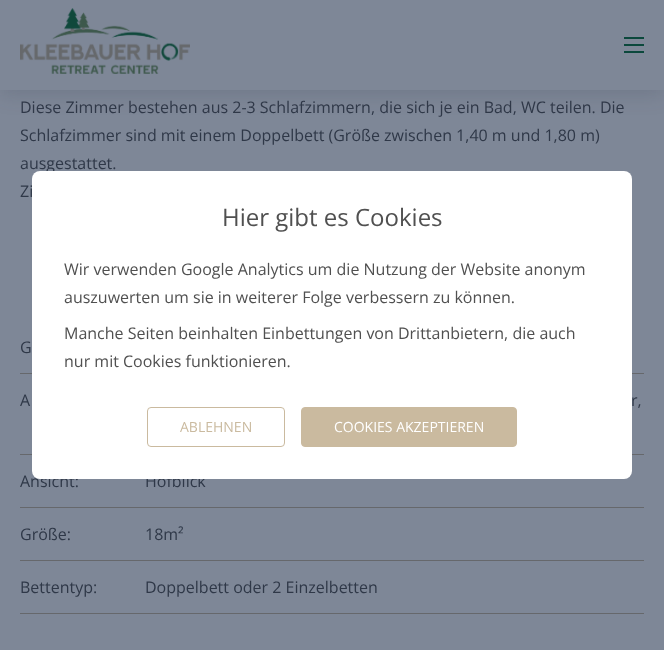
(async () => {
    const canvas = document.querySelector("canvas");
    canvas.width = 664;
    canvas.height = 650;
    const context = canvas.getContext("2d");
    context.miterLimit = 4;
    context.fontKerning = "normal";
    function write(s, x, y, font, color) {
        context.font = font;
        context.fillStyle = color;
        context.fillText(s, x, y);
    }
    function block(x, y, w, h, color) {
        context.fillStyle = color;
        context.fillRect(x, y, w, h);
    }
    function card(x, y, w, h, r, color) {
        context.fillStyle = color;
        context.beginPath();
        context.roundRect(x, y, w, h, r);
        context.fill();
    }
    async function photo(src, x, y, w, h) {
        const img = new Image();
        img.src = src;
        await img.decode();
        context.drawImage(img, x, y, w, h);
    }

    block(0, 0, 664, 650, "rgb(126, 135, 151)");
    context.fillStyle = "rgba(34, 43, 59, 0.15)";
    context.filter = "blur(10px)";
    context.beginPath();
    context.rect(0, 5, 664, 90);
    context.fill();
    context.filter = "none";
    block(0, 0, 664, 90, "rgb(126, 135, 151)");
    await photo("media/1.png", 20, 8, 170, 66);
    block(624, 37, 20, 2, "rgb(11, 72, 60)");
    block(624, 44, 20, 2, "rgb(11, 72, 60)");
    block(624, 51, 20, 2, "rgb(11, 72, 60)");
    write("Diese Zimmer bestehen aus 2-3 Schlafzimmern, die sich je ein Bad, WC teilen. Die", 20, 113, "16px Open Sans", "rgb(47, 56, 72)");
    write("Schlafzimmer sind mit einem Doppelbett (Größe zwischen 1,40 m und 1,80 m)", 20, 141, "16px Open Sans", "rgb(47, 56, 72)");
    write("ausgestattet.", 20, 169, "16px Open Sans", "rgb(47, 56, 72)");
    write("Zi", 20, 197, "16px Open Sans", "rgb(47, 56, 72)");
    block(20, 373, 12, 1, "rgb(102, 104, 108)");
    write("G", 20, 353, "16px Open Sans", "rgb(47, 56, 72)");
    block(632, 373, 12, 1, "rgb(102, 104, 108)");
    block(20, 454, 12, 1, "rgb(102, 104, 108)");
    write("A", 20, 406, "16px Open Sans", "rgb(47, 56, 72)");
    block(632, 454, 12, 1, "rgb(102, 104, 108)");
    write("r,", 631, 406, "16px Open Sans", "rgb(47, 56, 72)");
    block(20, 507, 624, 1, "rgb(102, 104, 108)");
    write("Ansicht:", 20, 487, "16px Open Sans", "rgb(47, 56, 72)");
    write("Hofblick", 145, 487, "16px Open Sans", "rgb(47, 56, 72)");
    block(20, 560, 624, 1, "rgb(102, 104, 108)");
    write("Größe:", 20, 540, "16px Open Sans", "rgb(47, 56, 72)");
    write("18m²", 145, 540, "16px Open Sans", "rgb(47, 56, 72)");
    block(20, 613, 624, 1, "rgb(102, 104, 108)");
    write("Bettentyp:", 20, 593, "16px Open Sans", "rgb(47, 56, 72)");
    write("Doppelbett oder 2 Einzelbetten", 145, 593, "16px Open Sans", "rgb(47, 56, 72)");
    card(32, 171, 600, 308, 8, "rgb(255, 255, 255)");
    write("Hier gibt es Cookies", 222, 226, "24px Open Sans", "rgb(80, 80, 80)");
    write("Wir verwenden Google Analytics um die Nutzung der Website anonym", 64, 275, "16px Open Sans", "rgb(80, 80, 80)");
    write("auszuwerten um sie in weiterer Folge verbessern zu können.", 64, 303, "16px Open Sans", "rgb(80, 80, 80)");
    write("Manche Seiten beinhalten Einbettungen von Drittanbietern, die auch", 64, 339, "16px Open Sans", "rgb(80, 80, 80)");
    write("nur mit Cookies funktionieren.", 64, 367, "16px Open Sans", "rgb(80, 80, 80)");
    context.beginPath();
    context.roundRect(147.5, 407.5, 137, 39, 3.5);
    context.strokeStyle = "rgb(202, 186, 159)";
    context.stroke();
    write("ABLEHNEN", 180, 432, "14px Open Sans", "rgb(202, 186, 159)");
    context.beginPath();
    context.roundRect(301.5, 407.5, 215, 39, 3.5);
    context.fill();
    context.stroke();
    write("COOKIES AKZEPTIEREN", 334, 432, "14px Open Sans", "rgb(255, 255, 255)");
})();
